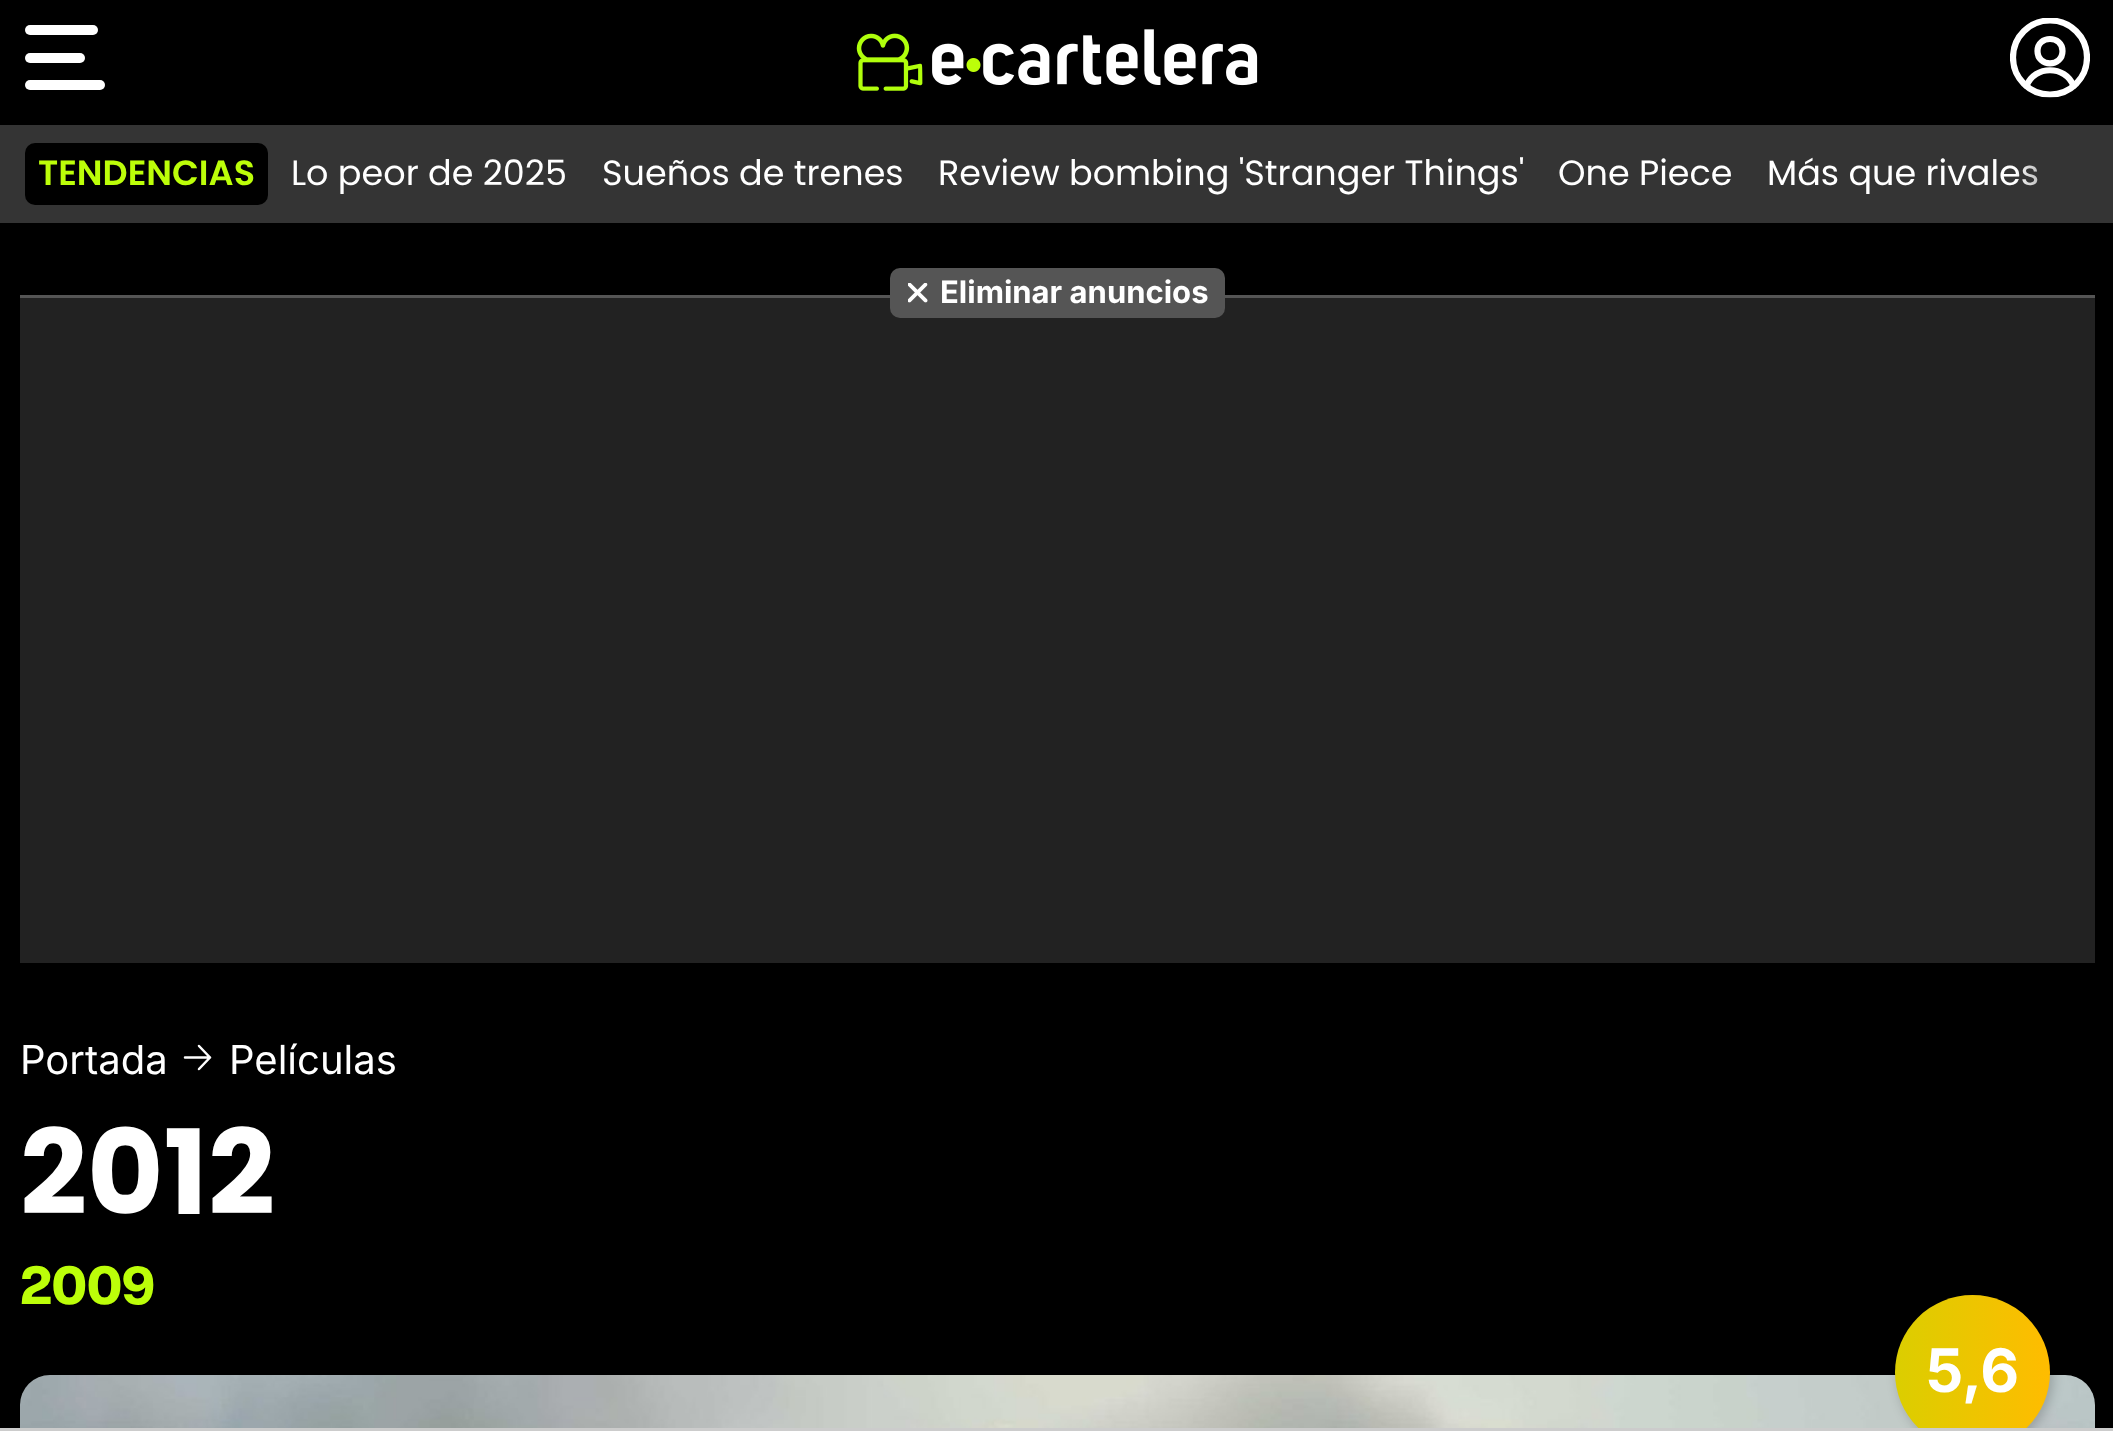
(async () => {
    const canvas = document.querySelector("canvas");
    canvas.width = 2113;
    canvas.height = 1453;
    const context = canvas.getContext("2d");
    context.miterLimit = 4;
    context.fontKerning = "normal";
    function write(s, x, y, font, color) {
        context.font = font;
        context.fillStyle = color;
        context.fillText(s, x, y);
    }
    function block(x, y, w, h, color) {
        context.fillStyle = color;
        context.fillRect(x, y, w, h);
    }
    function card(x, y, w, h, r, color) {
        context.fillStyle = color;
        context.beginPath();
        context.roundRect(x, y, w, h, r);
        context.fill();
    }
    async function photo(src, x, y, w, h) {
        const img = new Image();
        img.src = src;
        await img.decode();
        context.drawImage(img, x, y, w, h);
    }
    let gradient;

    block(0, 0, 2113, 1453, "rgb(52, 52, 52)");
    block(0, 0, 2113, 125, "rgb(0, 0, 0)");
    card(25, 25, 73, 10, 5, "rgb(255, 255, 255)");
    card(25, 53, 60, 10, 5, "rgb(255, 255, 255)");
    card(25, 80, 80, 10, 5, "rgb(255, 255, 255)");
    await photo("media/1.png", 856, 29, 402, 62);
    context.save();
    context.beginPath();
    context.rect(2010, 18, 80, 80);
    context.clip();
    context.beginPath();
    context.moveTo(2010, 17.5);
    context.lineTo(2090, 17.5);
    context.lineTo(2090, 97.5);
    context.lineTo(2010, 97.5);
    context.closePath();
    context.clip();
    context.beginPath();
    context.moveTo(2087, 57.5);
    context.bezierCurveTo(2087, 78, 2070.5, 94.5, 2050, 94.5);
    context.bezierCurveTo(2029.5, 94.5, 2013, 78, 2013, 57.5);
    context.bezierCurveTo(2013, 37, 2029.5, 20.5, 2050, 20.5);
    context.bezierCurveTo(2070.5, 20.5, 2087, 37, 2087, 57.5);
    context.closePath();
    context.strokeStyle = "rgb(255, 255, 255)";
    context.lineWidth = 6.2;
    context.lineCap = "round";
    context.lineJoin = "round";
    context.stroke();
    context.restore();
    context.beginPath();
    context.moveTo(2062.5, 51);
    context.bezierCurveTo(2062.5, 67.5, 2037.5, 67.5, 2037.5, 51);
    context.bezierCurveTo(2037.5, 35, 2062.5, 35, 2062.5, 51);
    context.closePath();
    context.moveTo(2073.5, 86);
    context.bezierCurveTo(2065.5, 65, 2034.5, 65, 2026.5, 86);
    context.strokeStyle = "rgb(255, 255, 255)";
    context.lineWidth = 6.2;
    context.lineCap = "round";
    context.lineJoin = "round";
    context.stroke();
    card(25, 143, 243, 62, 10, "rgb(0, 0, 0)");
    write("TENDENCIAS", 38, 185, "600 35px Poppins", "rgb(188, 254, 9)");
    write("Lo peor de 2025", 291, 185, "35px Poppins", "rgb(255, 255, 255)");
    write("Sueños de trenes", 602, 185, "35px Poppins", "rgb(255, 255, 255)");
    write("Review bombing 'Stranger Things'", 938, 185, "35px Poppins", "rgb(255, 255, 255)");
    write("One Piece", 1558, 185, "35px Poppins", "rgb(255, 255, 255)");
    write("Más que rivales", 1767, 185, "35px Poppins", "rgb(255, 255, 255)");
    gradient = context.createLinearGradient(2015, 174, 2090, 174);
    gradient.addColorStop(0, "rgba(52, 52, 52, 0)");
    gradient.addColorStop(1, "rgb(52, 52, 52)");
    context.fillStyle = gradient;
    context.fillRect(2017, 165, 21, 21);
    block(0, 223, 2113, 1205, "rgb(0, 0, 0)");
    block(20, 298, 2075, 665, "rgb(34, 34, 34)");
    block(20, 295, 2075, 3, "rgb(85, 85, 85)");
    card(890, 268, 335, 50, 10, "rgb(85, 85, 85)");
    await photo("media/2.png", 908, 283, 20, 20);
    write("Eliminar anuncios", 940, 303, "bold 31px Inter", "rgb(255, 255, 255)");
    write("Portada", 20, 1074, "40px Inter", "rgb(255, 255, 255)");
    context.beginPath();
    context.moveTo(185, 1057.5);
    context.lineTo(210, 1057.5);
    context.moveTo(210, 1057.5);
    context.lineTo(199, 1046);
    context.moveTo(210, 1057.5);
    context.lineTo(199, 1069);
    context.strokeStyle = "rgb(254, 254, 254)";
    context.lineWidth = 2.5;
    context.stroke();
    write("Películas", 229, 1074, "40px Inter", "rgb(255, 255, 255)");
    write("2012", 20, 1214, "bold 117.5px Poppins", "rgb(255, 255, 255)");
    write("2009", 20, 1304, "800 52.5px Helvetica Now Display", "rgb(188, 254, 9)");
    await photo("media/3.png", 20, 1375, 2075, 53);
    context.fillStyle = "rgba(0, 0, 0, 0.2)";
    context.filter = "blur(6px)";
    context.beginPath();
    context.roundRect(1898, 1298, 155, 155, 77.5);
    context.fill();
    context.filter = "none";
    gradient = context.createLinearGradient(1895, 1373, 2050, 1373);
    gradient.addColorStop(0, "rgb(219, 206, 0)");
    gradient.addColorStop(1, "rgb(255, 188, 0)");
    context.fillStyle = gradient;
    context.beginPath();
    context.arc(1972.5, 1372.5, 77.5, 0, Math.PI * 2);
    context.fill();
    write("5,6", 1926, 1392, "bold 60px Inter", "rgb(255, 255, 255)");
    block(0, 1431, 2113, 22, "rgb(255, 255, 255)");
    block(0, 1428, 2113, 3, "rgb(204, 204, 204)");
})();
